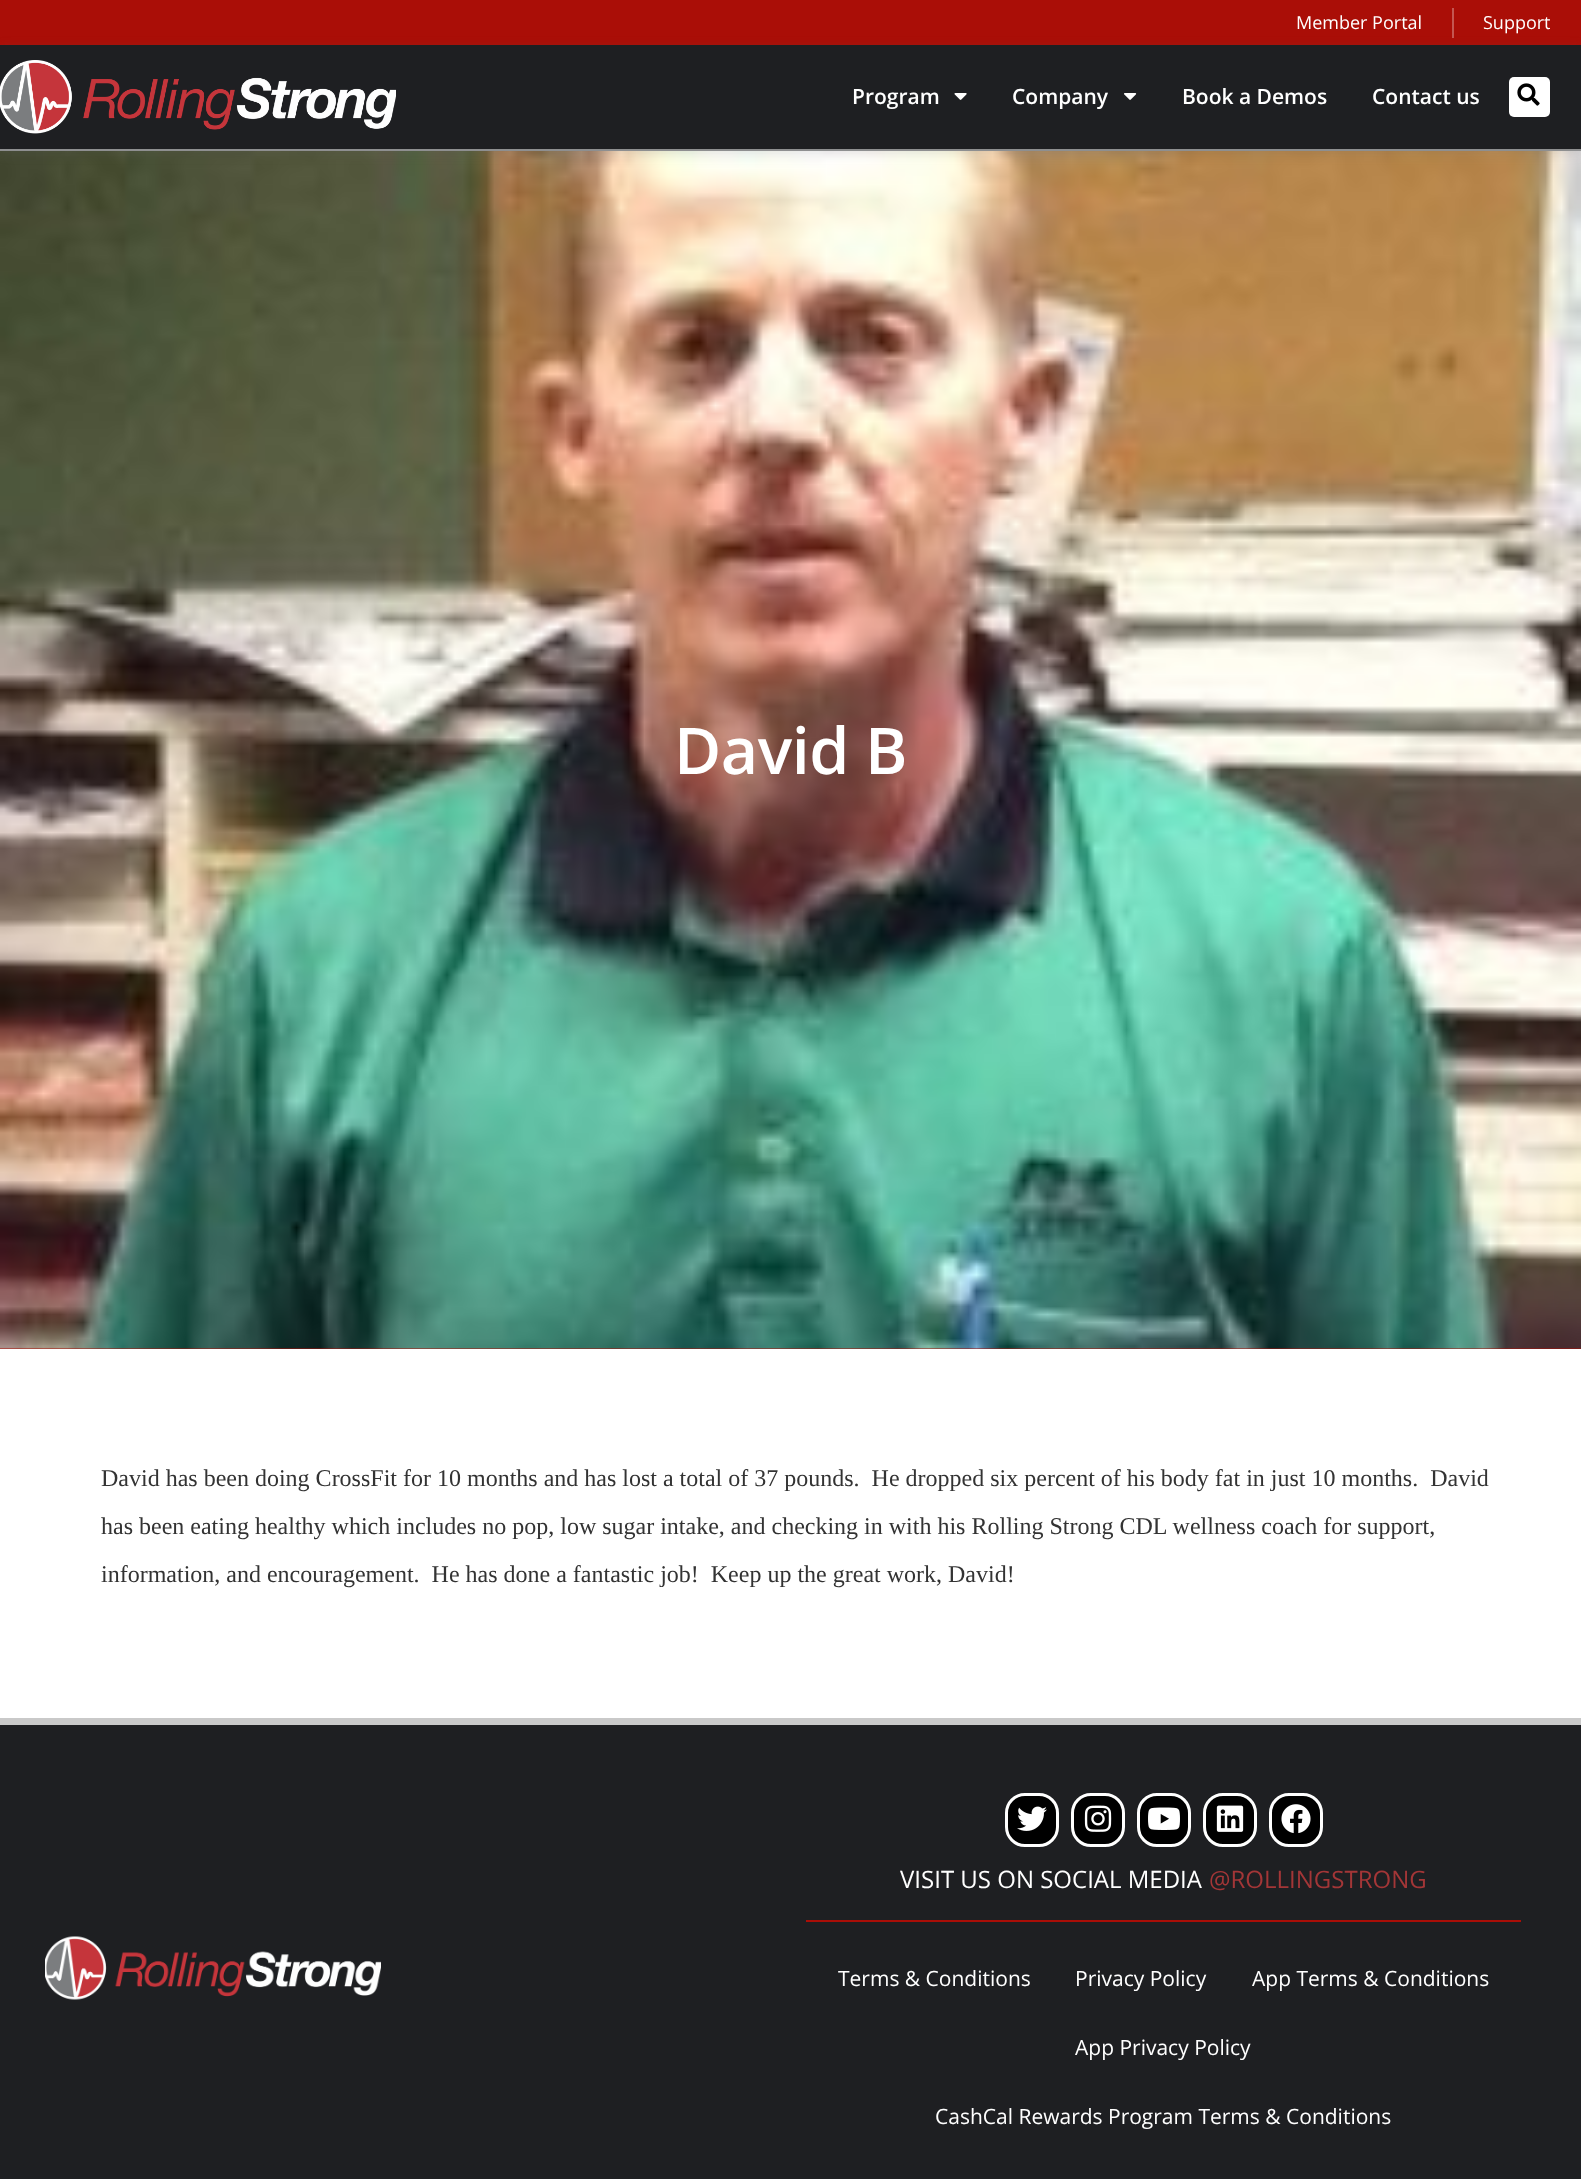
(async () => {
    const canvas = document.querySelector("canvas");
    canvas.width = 1581;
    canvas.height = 2179;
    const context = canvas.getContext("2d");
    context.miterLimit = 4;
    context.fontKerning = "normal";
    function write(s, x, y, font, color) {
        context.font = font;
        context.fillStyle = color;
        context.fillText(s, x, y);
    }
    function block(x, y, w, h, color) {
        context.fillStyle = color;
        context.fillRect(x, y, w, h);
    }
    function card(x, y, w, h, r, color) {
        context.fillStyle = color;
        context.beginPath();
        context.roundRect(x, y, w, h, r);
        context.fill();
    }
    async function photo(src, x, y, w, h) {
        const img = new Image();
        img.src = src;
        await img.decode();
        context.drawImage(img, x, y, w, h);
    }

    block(0, 0, 1581, 2179, "rgb(255, 255, 255)");
    block(0, 0, 1581, 45, "rgb(170, 14, 7)");
    block(1452, 8, 2, 30, "rgb(196, 86, 81)");
    write("Member Portal", 1296, 29, "18px Open Sans", "rgb(255, 255, 255)");
    write("Support", 1483, 29, "18px Open Sans", "rgb(255, 255, 255)");
    block(0, 1348, 1581, 1, "rgb(170, 14, 7)");
    await photo("media/5.png", 0, 151, 1581, 1198);
    context.fillStyle = "rgba(99, 99, 99, 0.2)";
    context.filter = "blur(6px)";
    context.beginPath();
    context.rect(0, 48, 1581, 105);
    context.fill();
    context.filter = "none";
    block(0, 45, 1581, 104, "rgb(30, 31, 34)");
    block(0, 149, 1581, 2, "rgb(142, 143, 144)");
    await photo("media/1.png", 0, 60, 396, 74);
    write("Program", 852, 104, "600 21px Open Sans", "rgb(255, 255, 255)");
    await photo("media/2.png", 954, 93, 13, 7);
    write("Company", 1012, 104, "600 21px Open Sans", "rgb(255, 255, 255)");
    await photo("media/3.png", 1124, 93, 13, 7);
    write("Book a Demos", 1182, 104, "600 21px Open Sans", "rgb(255, 255, 255)");
    write("Contact us", 1372, 104, "600 21px Open Sans", "rgb(255, 255, 255)");
    card(1509, 77, 41, 40, 5, "rgb(255, 255, 255)");
    await photo("media/4.png", 1517, 83, 23, 23);
    context.letterSpacing = "-0.5px";
    write("David B", 674, 774, "600 64.5px Open Sans", "rgb(255, 255, 255)");
    context.letterSpacing = "0px";
    write("David has been doing CrossFit for 10 months and has lost a total of 37 pounds.  He dropped six percent of his body fat in just 10 months.  David", 101, 1486, "24px Liberation Serif", "rgb(51, 51, 51)");
    write("has been eating healthy which includes no pop, low sugar intake, and checking in with his Rolling Strong CDL wellness coach for support,", 101, 1534, "24px Liberation Serif", "rgb(51, 51, 51)");
    write("information, and encouragement.  He has done a fantastic job!  Keep up the great work, David!", 101, 1582, "24px Liberation Serif", "rgb(51, 51, 51)");
    block(0, 1725, 1581, 454, "rgb(30, 31, 34)");
    block(0, 1718, 1581, 7, "rgb(201, 201, 201)");
    await photo("media/6.png", 45, 1936, 336, 64);
    context.fillStyle = "rgb(0, 0, 0)";
    context.beginPath();
    context.roundRect(1006.5, 1794.5, 51, 51, 18.5);
    context.fill();
    context.strokeStyle = "rgb(255, 255, 255)";
    context.lineWidth = 3;
    context.stroke();
    await photo("media/7.png", 1017, 1806, 30, 25);
    context.beginPath();
    context.roundRect(1072.5, 1794.5, 51, 51, 18.5);
    context.fill();
    context.stroke();
    await photo("media/8.png", 1084, 1805, 28, 27);
    context.beginPath();
    context.roundRect(1138.5, 1794.5, 51, 51, 18.5);
    context.fill();
    context.stroke();
    await photo("media/9.png", 1148, 1807, 32, 23);
    context.beginPath();
    context.roundRect(1204.5, 1794.5, 51, 51, 18.5);
    context.fill();
    context.stroke();
    await photo("media/10.png", 1216, 1805, 28, 27);
    context.beginPath();
    context.roundRect(1270.5, 1794.5, 51, 51, 18.5);
    context.fill();
    context.stroke();
    await photo("media/11.png", 1281, 1804, 30, 30);
    write("VISIT US ON SOCIAL MEDIA", 900, 1888, "24px Open Sans", "rgb(255, 255, 255)");
    write("@ROLLINGSTRONG", 1209, 1888, "24px Open Sans", "rgb(163, 54, 55)");
    block(806, 1920, 715, 2, "rgb(170, 14, 7)");
    write("Terms & Conditions", 838, 1986, "21px Open Sans", "rgb(255, 255, 255)");
    write("Privacy Policy", 1075, 1986, "21px Open Sans", "rgb(255, 255, 255)");
    write("App Terms & Conditions", 1252, 1986, "21px Open Sans", "rgb(255, 255, 255)");
    write("App Privacy Policy", 1075, 2055, "21px Open Sans", "rgb(255, 255, 255)");
    write("CashCal Rewards Program Terms & Conditions", 935, 2124, "21px Open Sans", "rgb(255, 255, 255)");
})();
